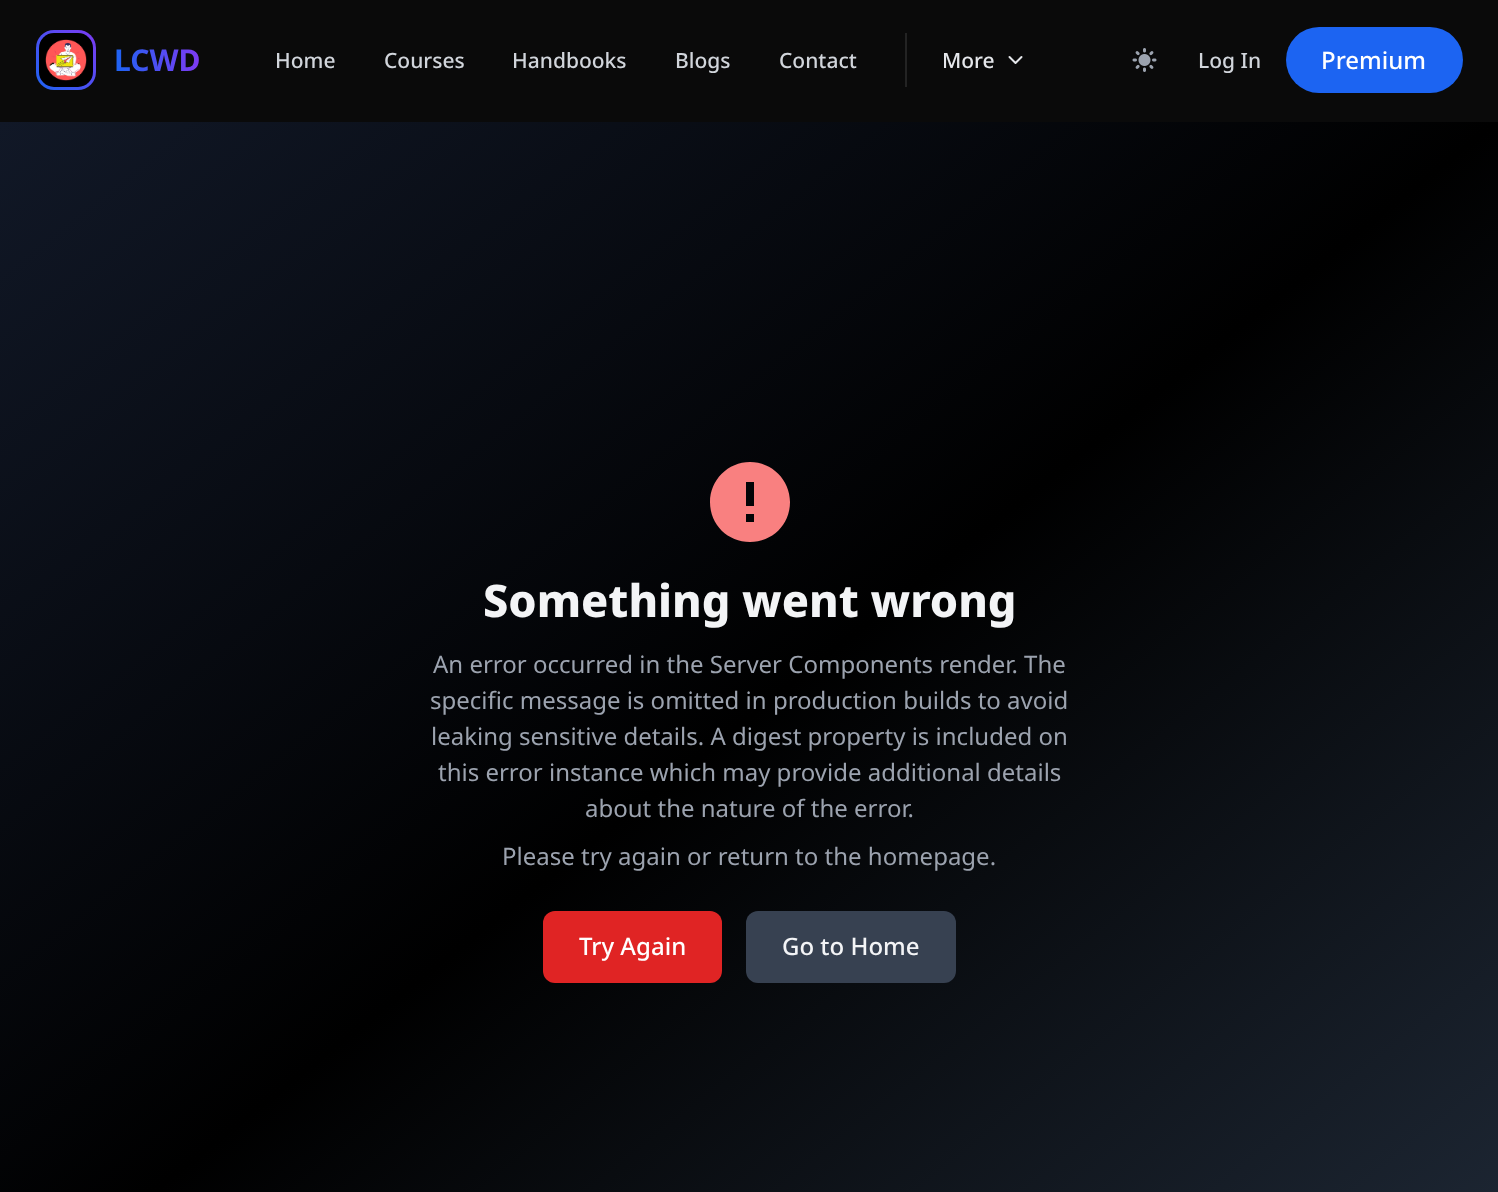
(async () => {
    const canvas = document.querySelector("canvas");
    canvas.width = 1498;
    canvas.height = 1192;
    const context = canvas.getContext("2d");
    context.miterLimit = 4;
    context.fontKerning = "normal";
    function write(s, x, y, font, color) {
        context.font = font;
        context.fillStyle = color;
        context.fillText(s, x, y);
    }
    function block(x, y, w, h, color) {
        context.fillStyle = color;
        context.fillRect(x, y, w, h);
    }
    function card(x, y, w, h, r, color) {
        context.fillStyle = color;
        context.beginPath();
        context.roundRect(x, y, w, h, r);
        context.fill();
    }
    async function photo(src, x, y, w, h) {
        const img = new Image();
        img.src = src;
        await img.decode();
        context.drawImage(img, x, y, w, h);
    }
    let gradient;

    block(0, 0, 1498, 1192, "rgb(10, 10, 10)");
    gradient = context.createLinearGradient(36, 90, 96, 30);
    gradient.addColorStop(0, "rgb(28, 100, 242)");
    gradient.addColorStop(1, "rgb(126, 58, 242)");
    context.fillStyle = gradient;
    context.beginPath();
    context.roundRect(36, 30, 60, 60, 18);
    context.fill();
    card(39, 33, 54, 54, 15, "rgb(0, 0, 0)");
    await photo("media/1.png", 45, 39, 42, 42);
    context.font = "bold 30px Noto Sans";
    gradient = context.createLinearGradient(114, 60, 200, 60);
    gradient.addColorStop(0, "rgb(28, 100, 242)");
    gradient.addColorStop(1, "rgb(126, 58, 242)");
    context.fillStyle = gradient;
    context.fillText("LCWD", 114, 71);
    write("Home", 275, 68, "500 21px Noto Sans", "rgb(209, 213, 219)");
    write("Courses", 384, 68, "500 21px Noto Sans", "rgb(209, 213, 219)");
    write("Handbooks", 512, 68, "500 21px Noto Sans", "rgb(209, 213, 219)");
    write("Blogs", 675, 68, "500 21px Noto Sans", "rgb(209, 213, 219)");
    write("Contact", 779, 68, "500 21px Noto Sans", "rgb(209, 213, 219)");
    block(905, 33, 2, 54, "rgb(35, 35, 35)");
    write("More", 942, 68, "500 21px Noto Sans", "rgb(229, 231, 235)");
    context.beginPath();
    context.moveTo(1009.5, 57);
    context.lineTo(1015.5, 63);
    context.lineTo(1021.5, 57);
    context.strokeStyle = "rgb(229, 231, 235)";
    context.lineWidth = 2;
    context.lineCap = "round";
    context.lineJoin = "round";
    context.stroke();
    await photo("media/2.png", 1132, 48, 25, 24);
    write("Log In", 1198, 68, "500 21px Noto Sans", "rgb(209, 213, 219)");
    card(1286, 27, 177, 66, 33, "rgb(28, 100, 242)");
    write("Premium", 1321, 69, "500 24px Noto Sans", "rgb(255, 255, 255)");
    gradient = context.createLinearGradient(168, -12, 1330, 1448);
    gradient.addColorStop(0, "rgb(17, 24, 39)");
    gradient.addColorStop(0.5, "rgb(0, 0, 0)");
    gradient.addColorStop(1, "rgb(31, 41, 55)");
    context.fillStyle = gradient;
    context.fillRect(0, 122, 1498, 1070);
    context.fillStyle = "rgb(249, 128, 128)";
    context.beginPath();
    context.moveTo(750, 462);
    context.bezierCurveTo(728, 462, 710, 480, 710, 502);
    context.bezierCurveTo(710, 525, 728, 542, 750, 542);
    context.bezierCurveTo(772, 542, 790, 525, 790, 502);
    context.bezierCurveTo(790, 480, 772, 462, 750, 462);
    context.closePath();
    context.moveTo(754, 522);
    context.lineTo(746, 522);
    context.lineTo(746, 514);
    context.lineTo(754, 514);
    context.closePath();
    context.moveTo(754, 506);
    context.lineTo(746, 506);
    context.lineTo(746, 482);
    context.lineTo(754, 482);
    context.closePath();
    context.fill();
    write("Something went wrong", 483, 617, "800 45px Noto Sans", "rgb(243, 244, 246)");
    write("An error occurred in the Server Components render. The", 433, 673, "24px Noto Sans", "rgb(156, 163, 175)");
    write("specific message is omitted in production builds to avoid", 430, 709, "24px Noto Sans", "rgb(156, 163, 175)");
    write("leaking sensitive details. A digest property is included on", 431, 745, "24px Noto Sans", "rgb(156, 163, 175)");
    write("this error instance which may provide additional details", 438, 781, "24px Noto Sans", "rgb(156, 163, 175)");
    write("about the nature of the error.", 585, 817, "24px Noto Sans", "rgb(156, 163, 175)");
    write("Please try again or return to the homepage.", 502, 865, "24px Noto Sans", "rgb(156, 163, 175)");
    card(543, 911, 179, 72, 12, "rgb(224, 36, 36)");
    write("Try Again", 579, 955, "500 24px Noto Sans", "rgb(255, 255, 255)");
    card(746, 911, 210, 72, 12, "rgb(55, 65, 81)");
    write("Go to Home", 782, 955, "500 24px Noto Sans", "rgb(243, 244, 246)");
})();
